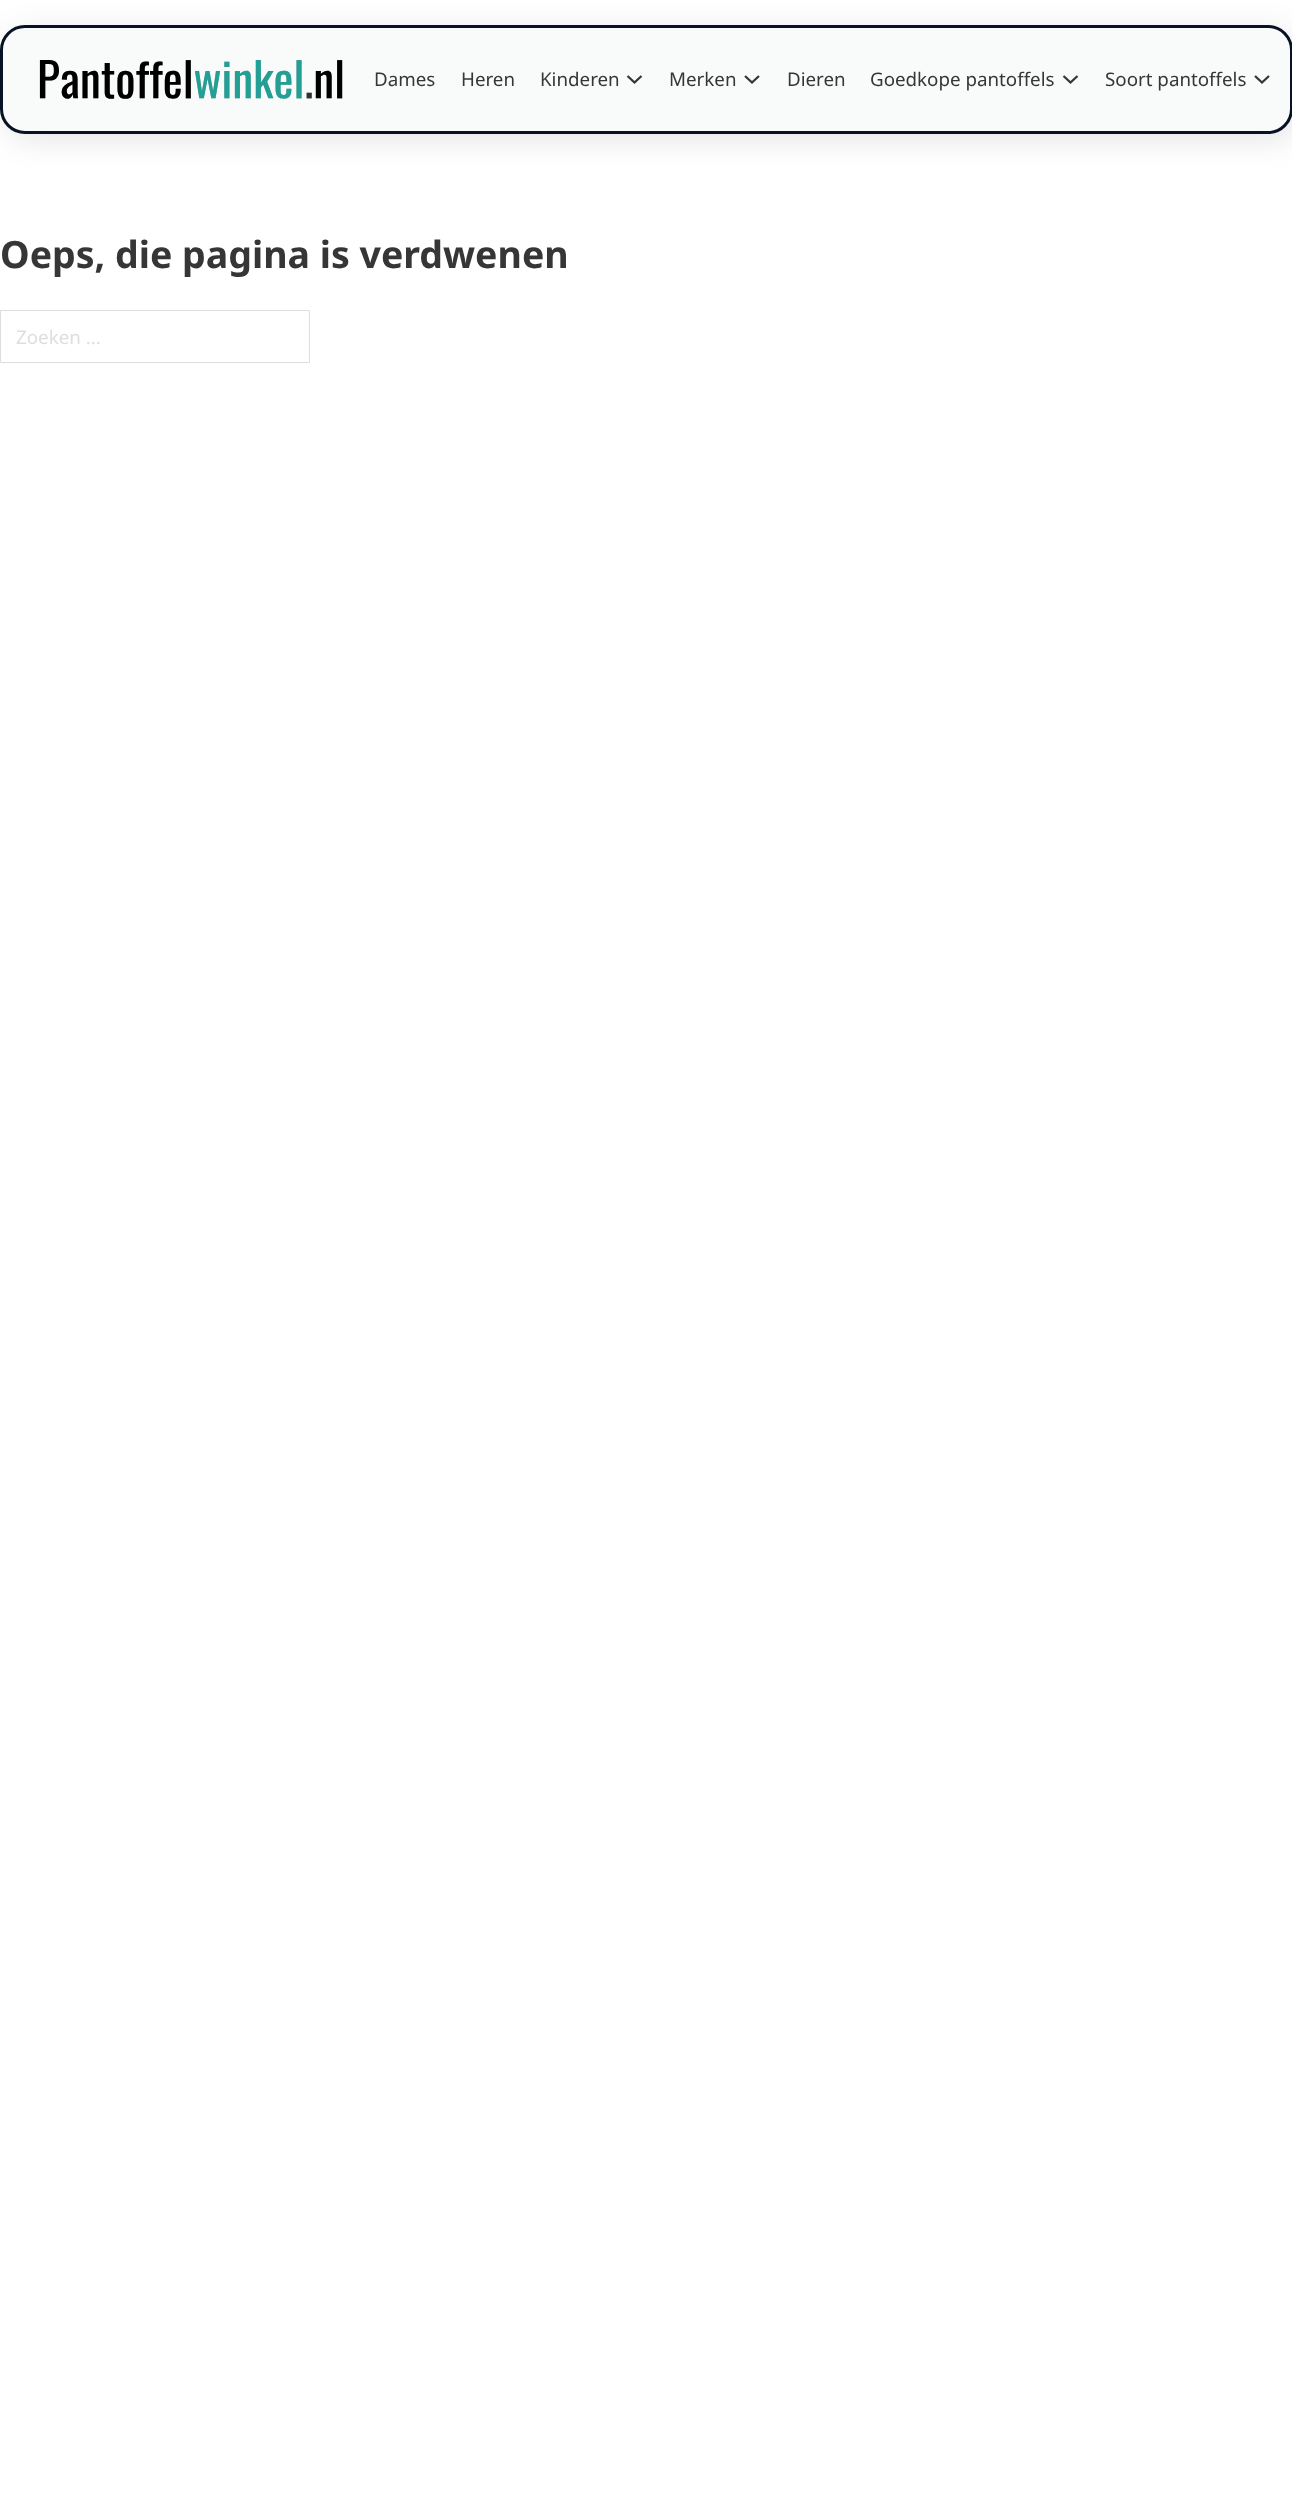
<svg xmlns="http://www.w3.org/2000/svg" width="1292" height="2514" viewBox="0 0 1292 2514">
  <rect width="100%" height="100%" fill="#fff"/>
  <rect x="6" y="31" width="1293" height="109" rx="25" fill="#0000001a" filter="blur(15.5px)"/>
  <rect x="1.5" y="26.5" width="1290" height="106" rx="23.5" fill="#f9fbfb" stroke="#071225" stroke-width="3"/>
  <image x="39" y="60" width="304" height="39" href="img/1.png"/>
  <path d="M627.5 76L634.5 82.5L641.5 76" fill="none" stroke="#363636" stroke-width="2.3"/>
  <path d="M745 76L752 82.5L759 76" fill="none" stroke="#363636" stroke-width="2.3"/>
  <path d="M1063.5 76L1070.5 82.5L1077.5 76" fill="none" stroke="#363636" stroke-width="2.3"/>
  <path d="M1255 76L1262 82.5L1269 76" fill="none" stroke="#363636" stroke-width="2.3"/>
  <path d="M0.5 310.5h309v52H0.5z" fill="none" stroke="#dddedf"/>
  <g font-family="Noto Sans" font-size="18.75" fill="#363636">
    <text x="374" y="86">Dames</text>
    <text x="461" y="86">Heren</text>
    <text x="540" y="86">Kinderen</text>
    <text x="669" y="86">Merken</text>
    <text x="787" y="86">Dieren</text>
    <text x="870" y="86">Goedkope pantoffels</text>
    <text x="1105" y="86">Soort pantoffels</text>
  </g>
  <text x="0" y="268" font-family="Noto Sans" font-size="37.5" font-weight="bold" fill="#363636">Oeps, die pagina is verdwenen</text>
  <text x="16" y="344" font-family="Noto Sans" font-size="18.75" fill="#dddedf">Zoeken ...</text>
</svg>
